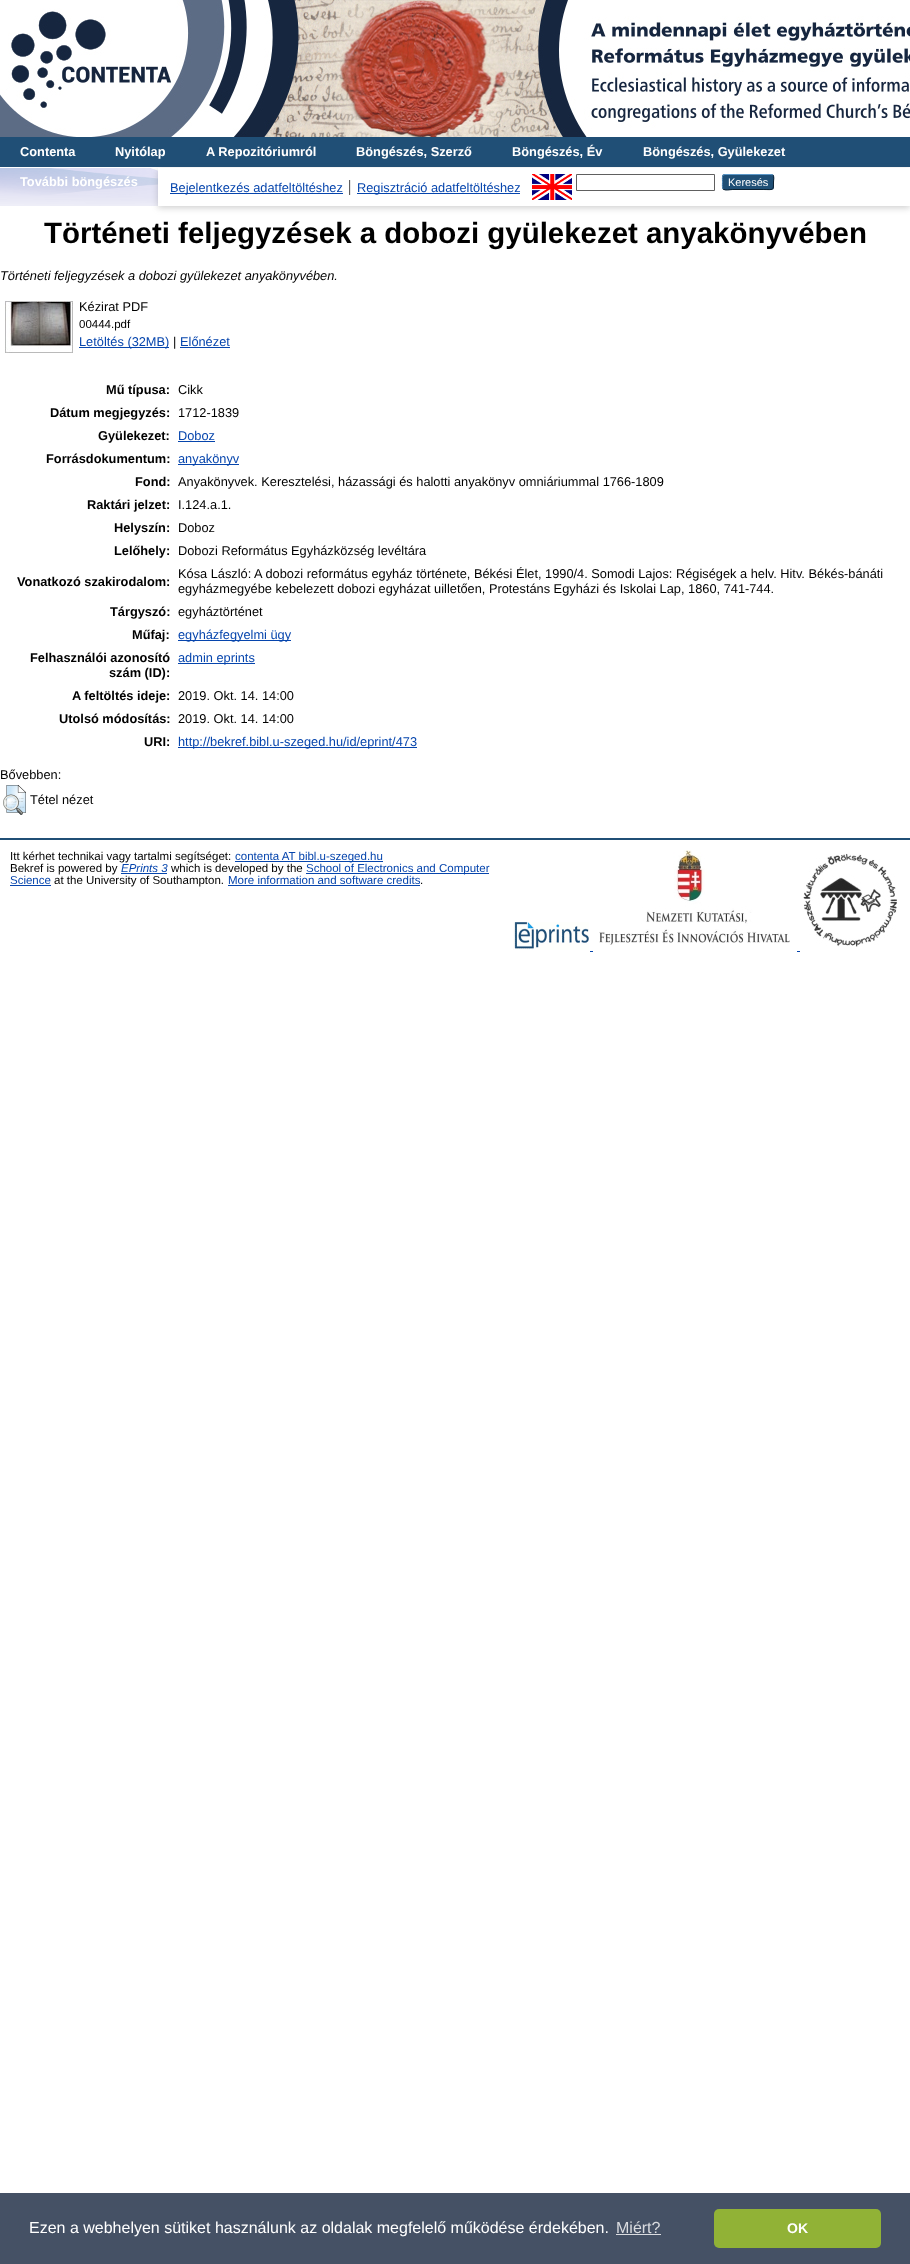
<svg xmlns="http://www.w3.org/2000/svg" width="910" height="2264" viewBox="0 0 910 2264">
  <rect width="100%" height="100%" fill="#fff"/>
  <image x="0" y="168" width="158" height="38" href="img/1.png"/>
  <image x="0" y="0" width="910" height="137" href="img/2.png"/>
  <path d="M0 137h910v30H0z" fill="#204f76"/>
  <path d="M158 170h752v38H158z" fill="#6464644d" filter="blur(3px)"/>
  <path d="M158 168h752v38H158z" fill="#fff"/>
  <path d="M349 180h1v15H349z" fill="#606060"/>
  <path d="M170 193h173v1H170z" fill="#0645ad"/>
  <path d="M350 180h1v15H350z" fill="#e8e8e8"/>
  <path d="M357 193h163v1H357z" fill="#0645ad"/>
  <image x="532" y="174" width="40" height="26" href="img/3.png"/>
  <path d="M576.5 174.5h138v16H576.5z" fill="none" stroke="#606060"/>
  <rect x="722" y="174" width="52" height="16" rx="3" fill="#1f4f76"/>
  <path d="M723 175L725 174.5H771L773 175" fill="none" stroke="#5b97c7"/>
  <path d="M773 175C774.5 177 773.5 180 773.5 182C773.5 191 773.5 189.5 763.5 189.5H732.5C729.5 189.5 725.5 191 723 189" fill="none" stroke="#0d2131"/>
  <path d="M723 189C722 187.5 722.5 183.5 722.5 182C722.5 180.5 722 176.5 723 175" fill="none" stroke="#5287b3"/>
  <image x="5" y="301" width="68" height="52" href="img/4.png"/>
  <path d="M79 347h90v1H79z" fill="#0645ad"/>
  <path d="M180 347h50v1H180z" fill="#0645ad"/>
  <path d="M178 441h37v1H178z" fill="#0645ad"/>
  <path d="M178 464h61v1H178z" fill="#0645ad"/>
  <path d="M178 640h113v1H178z" fill="#0645ad"/>
  <path d="M178 663h77v1H178z" fill="#0645ad"/>
  <path d="M178 747h239v1H178z" fill="#0645ad"/>
  <image x="3" y="785" width="23" height="30" href="img/5.png"/>
  <path d="M0 838h910v2H0z" fill="#204f76"/>
  <path d="M235 861h148v1H235z" fill="#0645ad"/>
  <path d="M121 873h46v1H121z" fill="#0645ad"/>
  <path d="M306 873h183v1H306z" fill="#0645ad"/>
  <path d="M10 885h41v1H10z" fill="#0645ad"/>
  <path d="M228 885h192v1H228z" fill="#0645ad"/>
  <image x="513" y="922" width="76" height="28" href="img/6.png"/>
  <image x="599" y="850" width="191" height="95" href="img/7.png"/>
  <image x="803" y="853" width="94" height="94" href="img/8.png"/>
  <path d="M590 951h3v1H590z" fill="#0645ad"/>
  <path d="M797 951h3v1H797z" fill="#0645ad"/>
  <path d="M0 2193h910v71H0z" fill="#455165"/>
  <path d="M616 2234h45v1H616z" fill="#dadce0"/>
  <rect x="714" y="2209" width="167" height="39" rx="5" fill="#91b236"/>
  <g font-family="Liberation Sans" font-size="12.8" font-weight="bold" fill="#fff">
    <text x="20" y="156">Contenta</text>
    <text x="115" y="156">Nyitólap</text>
    <text x="206" y="156">A Repozitóriumról</text>
    <text x="356" y="156">Böngészés, Szerző</text>
    <text x="512" y="156">Böngészés, Év</text>
    <text x="643" y="156">Böngészés, Gyülekezet</text>
    <text x="20" y="186">További böngészés</text>
  </g>
  <g font-family="Liberation Sans" font-size="12.8" fill="#0645ad">
    <text x="170" y="192">Bejelentkezés adatfeltöltéshez</text>
    <text x="357" y="192">Regisztráció adatfeltöltéshez</text>
  </g>
  <text x="728" y="186" font-family="Liberation Sans" font-size="11" fill="#fff">Keresés</text>
  <text x="44" y="243" font-family="Liberation Sans" font-size="29.45" font-weight="bold" fill="#000">Történeti feljegyzések a dobozi gyülekezet anyakönyvében</text>
  <text x="0" y="280" font-family="Liberation Sans" font-size="12.8" font-style="italic" fill="#000">Történeti feljegyzések a dobozi gyülekezet anyakönyvében.</text>
  <text x="79" y="311" font-family="Liberation Sans" font-size="12.8" fill="#000">Kézirat PDF</text>
  <text x="79" y="328" font-family="Liberation Sans" font-size="11.5" fill="#000">00444.pdf</text>
  <text x="79" y="346" font-family="Liberation Sans" font-size="12.8" fill="#0645ad">Letöltés (32MB)</text>
  <text x="173" y="346" font-family="Liberation Sans" font-size="12.8" fill="#000">|</text>
  <text x="180" y="346" font-family="Liberation Sans" font-size="12.8" fill="#0645ad">Előnézet</text>
  <text x="106" y="394" font-family="Liberation Sans" font-size="12.8" font-weight="bold" fill="#000">Mű típusa:</text>
  <text x="178" y="394" font-family="Liberation Sans" font-size="12.8" fill="#000">Cikk</text>
  <text x="50" y="417" font-family="Liberation Sans" font-size="12.8" font-weight="bold" fill="#000">Dátum megjegyzés:</text>
  <text x="178" y="417" font-family="Liberation Sans" font-size="12.8" fill="#000">1712-1839</text>
  <text x="98" y="440" font-family="Liberation Sans" font-size="12.8" font-weight="bold" fill="#000">Gyülekezet:</text>
  <text x="178" y="440" font-family="Liberation Sans" font-size="12.8" fill="#0645ad">Doboz</text>
  <text x="46" y="463" font-family="Liberation Sans" font-size="12.8" font-weight="bold" fill="#000">Forrásdokumentum:</text>
  <text x="178" y="463" font-family="Liberation Sans" font-size="12.8" fill="#0645ad">anyakönyv</text>
  <text x="135" y="486" font-family="Liberation Sans" font-size="12.8" font-weight="bold" fill="#000">Fond:</text>
  <text x="178" y="486" font-family="Liberation Sans" font-size="12.8" fill="#000">Anyakönyvek. Keresztelési, házassági és halotti anyakönyv omniáriummal 1766-1809</text>
  <text x="87" y="509" font-family="Liberation Sans" font-size="12.8" font-weight="bold" fill="#000">Raktári jelzet:</text>
  <text x="178" y="509" font-family="Liberation Sans" font-size="12.8" fill="#000">I.124.a.1.</text>
  <text x="114" y="532" font-family="Liberation Sans" font-size="12.8" font-weight="bold" fill="#000">Helyszín:</text>
  <text x="178" y="532" font-family="Liberation Sans" font-size="12.8" fill="#000">Doboz</text>
  <text x="114" y="555" font-family="Liberation Sans" font-size="12.8" font-weight="bold" fill="#000">Lelőhely:</text>
  <text x="178" y="555" font-family="Liberation Sans" font-size="12.8" fill="#000">Dobozi Református Egyházközség levéltára</text>
  <text x="17" y="586" font-family="Liberation Sans" font-size="12.8" font-weight="bold" fill="#000">Vonatkozó szakirodalom:</text>
  <g font-family="Liberation Sans" font-size="12.8" fill="#000">
    <text x="178" y="578">Kósa László: A dobozi református egyház története, Békési Élet, 1990/4. Somodi Lajos: Régiségek a helv. Hitv. Békés-bánáti</text>
    <text x="178" y="593">egyházmegyébe kebelezett dobozi egyházat uilletően, Protestáns Egyházi és Iskolai Lap, 1860, 741-744.</text>
  </g>
  <text x="110" y="616" font-family="Liberation Sans" font-size="12.8" font-weight="bold" fill="#000">Tárgyszó:</text>
  <text x="178" y="616" font-family="Liberation Sans" font-size="12.8" fill="#000">egyháztörténet</text>
  <text x="132" y="639" font-family="Liberation Sans" font-size="12.8" font-weight="bold" fill="#000">Műfaj:</text>
  <text x="178" y="639" font-family="Liberation Sans" font-size="12.8" fill="#0645ad">egyházfegyelmi ügy</text>
  <g font-family="Liberation Sans" font-size="12.8" font-weight="bold" fill="#000">
    <text x="30" y="662">Felhasználói azonosító</text>
    <text x="109" y="677">szám (ID):</text>
  </g>
  <text x="178" y="662" font-family="Liberation Sans" font-size="12.8" fill="#0645ad">admin eprints</text>
  <text x="72" y="700" font-family="Liberation Sans" font-size="12.8" font-weight="bold" fill="#000">A feltöltés ideje:</text>
  <text x="178" y="700" font-family="Liberation Sans" font-size="12.8" fill="#000">2019. Okt. 14. 14:00</text>
  <text x="59" y="723" font-family="Liberation Sans" font-size="12.8" font-weight="bold" fill="#000">Utolsó módosítás:</text>
  <text x="178" y="723" font-family="Liberation Sans" font-size="12.8" fill="#000">2019. Okt. 14. 14:00</text>
  <text x="144" y="746" font-family="Liberation Sans" font-size="12.8" font-weight="bold" fill="#000">URI:</text>
  <text x="178" y="746" font-family="Liberation Sans" font-size="12.8" fill="#0645ad">http://bekref.bibl.u-szeged.hu/id/eprint/473</text>
  <g font-family="Liberation Sans" font-size="12.8" fill="#000">
    <text x="0" y="779">Bővebben:</text>
    <text x="30" y="804">Tétel nézet</text>
  </g>
  <text x="10" y="860" font-family="Liberation Sans" font-size="11.5" fill="#000">Itt kérhet technikai vagy tartalmi segítséget:</text>
  <text x="235" y="860" font-family="Liberation Sans" font-size="11.5" fill="#0645ad">contenta AT bibl.u-szeged.hu</text>
  <text x="10" y="872" font-family="Liberation Sans" font-size="11.5" fill="#000">Bekref is powered by</text>
  <text x="121" y="872" font-family="Liberation Sans" font-size="11.5" font-style="italic" fill="#0645ad">EPrints 3</text>
  <text x="171" y="872" font-family="Liberation Sans" font-size="11.5" fill="#000">which is developed by the</text>
  <g font-family="Liberation Sans" font-size="11.5" fill="#0645ad">
    <text x="306" y="872">School of Electronics and Computer</text>
    <text x="10" y="884">Science</text>
  </g>
  <text x="54" y="884" font-family="Liberation Sans" font-size="11.5" fill="#000">at the University of Southampton.</text>
  <text x="228" y="884" font-family="Liberation Sans" font-size="11.5" fill="#0645ad">More information and software credits</text>
  <text x="420" y="884" font-family="Liberation Sans" font-size="11.5" fill="#000">.</text>
  <text x="29" y="2233" font-family="Liberation Sans" font-size="16" fill="#fff">Ezen a webhelyen sütiket használunk az oldalak megfelelő működése érdekében.</text>
  <text x="616" y="2233" font-family="Liberation Sans" font-size="16" fill="#dadce0">Miért?</text>
  <text x="787" y="2233" font-family="Liberation Sans" font-size="14" font-weight="bold" fill="#fff">OK</text>
</svg>
